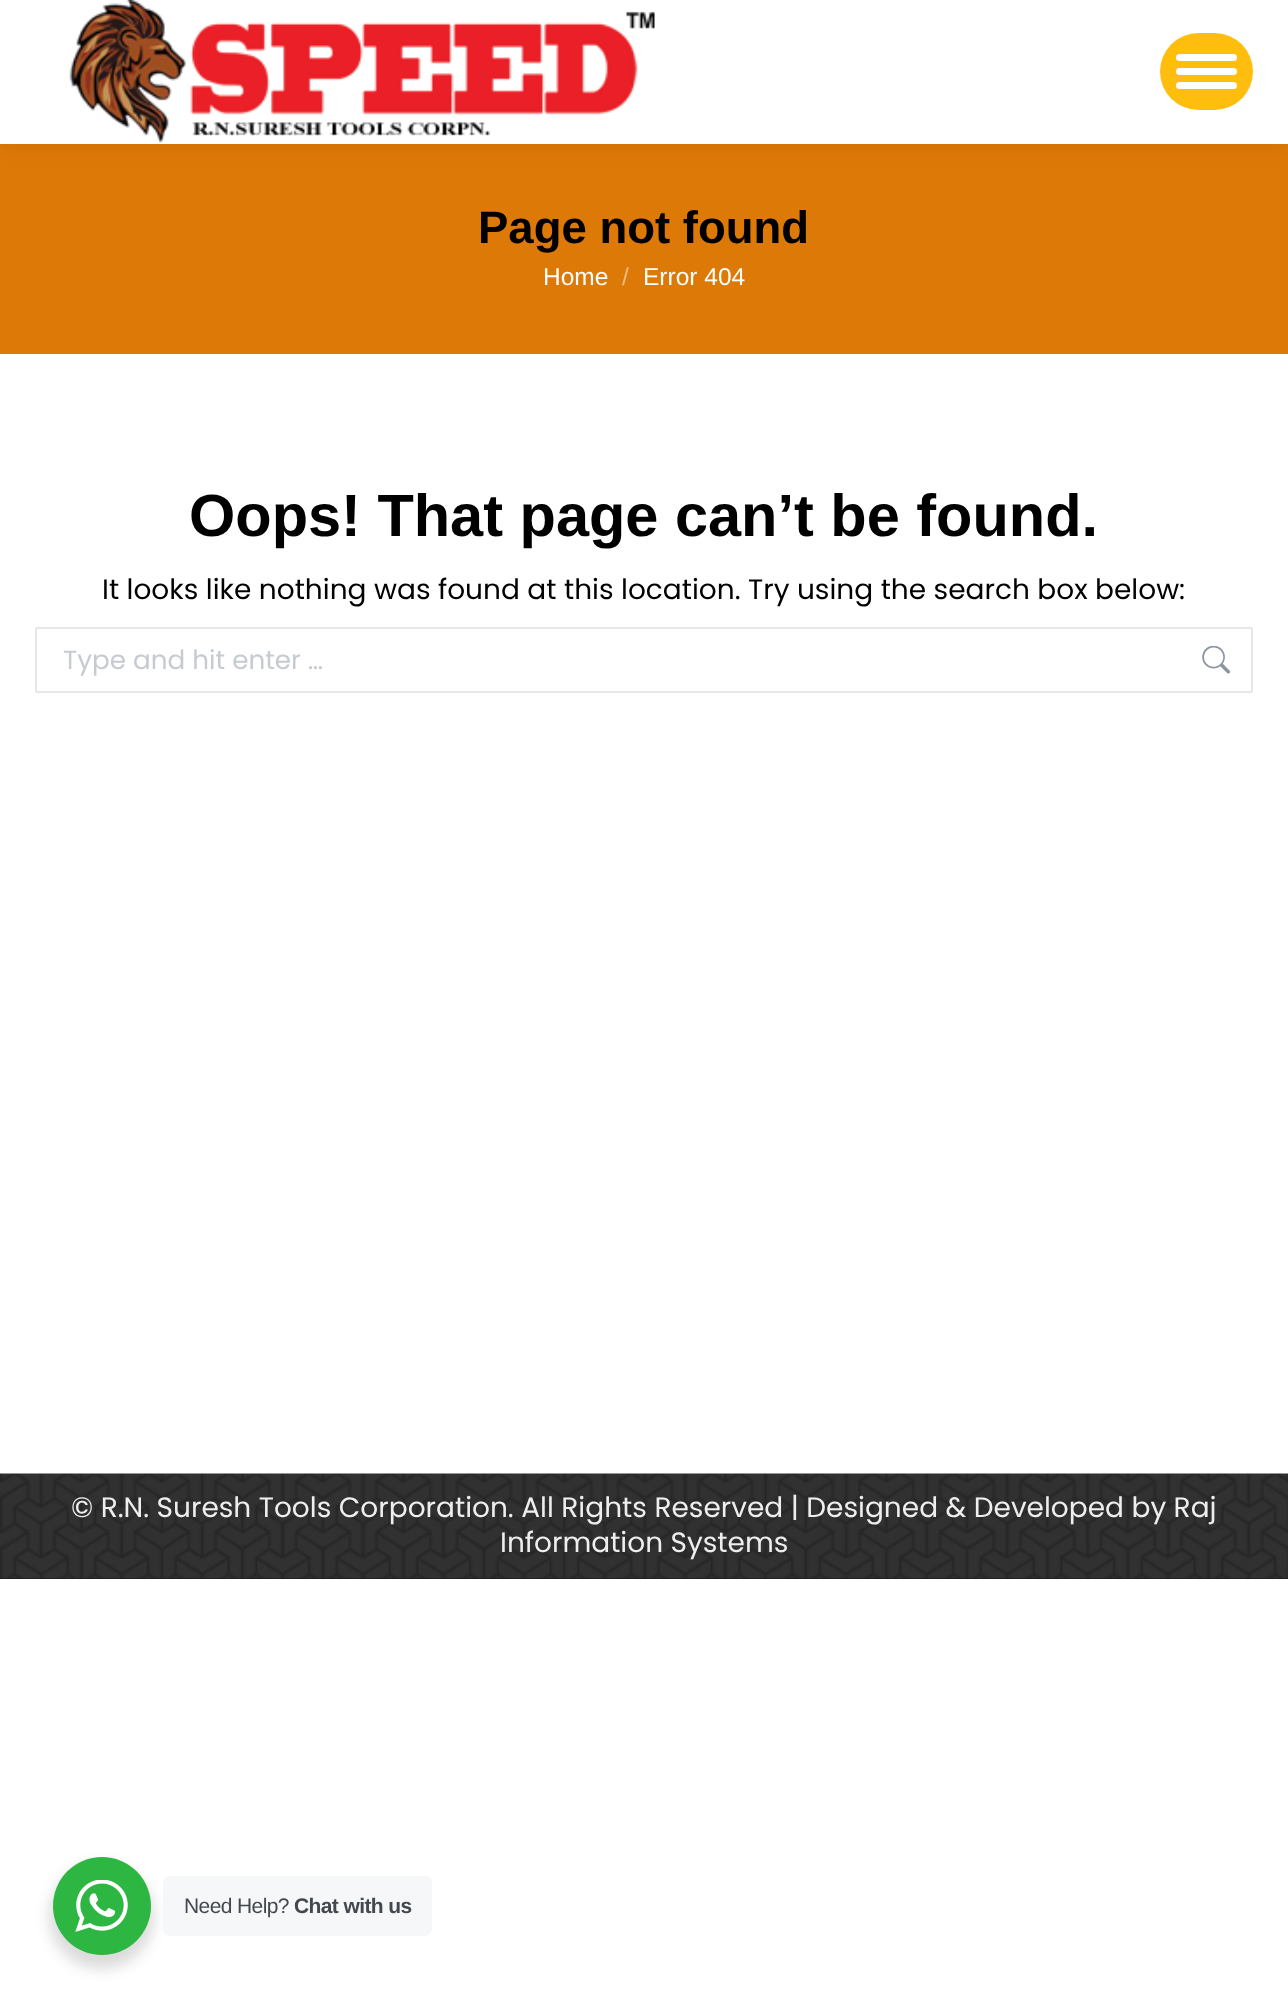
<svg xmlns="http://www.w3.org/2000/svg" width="1288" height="2007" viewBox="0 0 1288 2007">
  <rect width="100%" height="100%" fill="#fff"/>
  <path d="M0 144h1288v210H0z" fill="#dd7907"/>
  <path d="M-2 -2h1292v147H-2z" fill="#00000012" filter="blur(13px)"/>
  <path d="M0 0h1288v144H0z" fill="#fff"/>
  <image x="69" y="0" width="586" height="143" href="img/1.png"/>
  <rect x="1160" y="33" width="93" height="77" rx="38.5" fill="#ffbe0e"/>
  <rect x="1176" y="54" width="61" height="7" rx="3.5" fill="#fff"/>
  <rect x="1176" y="68" width="61" height="7" rx="3.5" fill="#fff"/>
  <rect x="1176" y="82" width="61" height="7" rx="3.5" fill="#fff"/>
  <rect x="36" y="628" width="1216" height="64" rx="1" fill="none" stroke="#e7e7e7" stroke-width="2"/>
  <image x="1202" y="646" width="28" height="28" href="img/2.png"/>
  <path d="M0 1578h1288v1H0z" fill="#1a1c20"/>
  <image x="0" y="1473" width="1288" height="106" href="img/3.png"/>
  <rect x="49" y="1864" width="105" height="105" rx="52.5" fill="#00000024" filter="blur(7px)"/>
  <circle cx="102" cy="1906" r="49" fill="#2db742"/>
  <image x="75" y="1880" width="53" height="52" href="img/4.png"/>
  <rect x="163" y="1876" width="269" height="60" rx="7" fill="#f5f7f9"/>
  <text x="478" y="243" font-family="Liberation Sans" font-size="45.5" font-weight="bold" fill="#000">Page not found</text>
  <text x="543" y="285" font-family="Liberation Sans" font-size="24.5" fill="#fff">Home</text>
  <text x="622" y="285" font-family="Liberation Sans" font-size="24.5" fill="#eebc83">/</text>
  <text x="643" y="285" font-family="Liberation Sans" font-size="24.5" fill="#fff">Error 404</text>
  <text x="189" y="536" font-family="Liberation Sans" font-size="59.5" font-weight="bold" fill="#000">Oops! That page can’t be found.</text>
  <text x="102" y="599" font-family="Poppins" font-size="28" fill="#000">It looks like nothing was found at this location. Try using the search box below:</text>
  <text x="63" y="669" font-family="Poppins" font-size="26.25" fill="#c6cad1">Type and hit enter …</text>
  <g font-family="Poppins" font-size="28" fill="#eee">
    <text x="71" y="1517">© R.N. Suresh Tools Corporation. All Rights Reserved | Designed &amp; Developed by Raj</text>
    <text x="500" y="1552">Information Systems</text>
  </g>
  <text x="184" y="1913" font-family="Liberation Sans" font-size="21" letter-spacing="-0.6" fill="#43474e">Need Help?</text>
  <text x="294" y="1913" font-family="Liberation Sans" font-size="21" font-weight="bold" letter-spacing="-0.6" fill="#43474e">Chat with us</text>
</svg>
